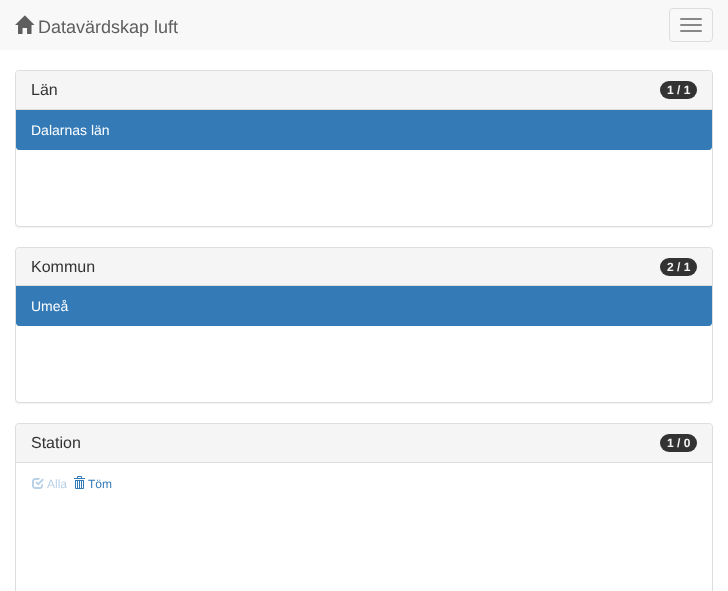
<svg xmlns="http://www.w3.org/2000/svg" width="728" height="591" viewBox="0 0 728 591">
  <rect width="100%" height="100%" fill="#fff"/>
  <path d="M0 0h728v50H0z" fill="#f8f8f8"/>
  <image x="15" y="15" width="20" height="19" href="img/1.png"/>
  <rect x="669.5" y="8.5" width="43" height="33" rx="3.5" fill="none" stroke="#ddd"/>
  <rect x="680" y="18" width="22" height="2" rx="1" fill="#888"/>
  <rect x="680" y="24" width="22" height="2" rx="1" fill="#888"/>
  <rect x="680" y="30" width="22" height="2" rx="1" fill="#888"/>
  <rect x="15" y="71" width="698" height="157" rx="4" fill="#0000000d" filter="blur(0.5px)"/>
  <rect x="15.5" y="70.5" width="697" height="156" rx="3.5" fill="#fff" stroke="#ddd"/>
  <path d="M19 71H709C710.5 71 712 72.5 712 74V110H16V74C16 72.5 17.5 71 19 71Z" fill="#f5f5f5"/>
  <path d="M16 109h696v1H16z" fill="#ddd"/>
  <rect x="660" y="81" width="37" height="18" rx="9" fill="#333"/>
  <path d="M16 110H712V147C712 148.5 710.5 150 709 150H19C17.5 150 16 148.5 16 147Z" fill="#337ab7"/>
  <rect x="15" y="248" width="698" height="156" rx="4" fill="#0000000d" filter="blur(0.5px)"/>
  <rect x="15.5" y="247.5" width="697" height="155" rx="3.5" fill="#fff" stroke="#ddd"/>
  <path d="M19 248H709C710.5 248 712 249.5 712 251V286H16V251C16 249.5 17.5 248 19 248Z" fill="#f5f5f5"/>
  <path d="M16 285h696v1H16z" fill="#ddd"/>
  <rect x="660" y="258" width="37" height="18" rx="9" fill="#333"/>
  <path d="M16 286H712V323C712 324.5 710.5 326 709 326H19C17.5 326 16 324.5 16 323Z" fill="#337ab7"/>
  <rect x="15.5" y="423.5" width="697" height="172" rx="3.5" fill="none" stroke="#ddd"/>
  <path d="M19 424H709C710.5 424 712 425.5 712 427V463H16V427C16 425.5 17.5 424 19 424Z" fill="#f5f5f5"/>
  <path d="M16 462h696v1H16z" fill="#ddd"/>
  <rect x="660" y="434" width="37" height="18" rx="9" fill="#333"/>
  <image x="32" y="478" width="12" height="11" href="img/2.png"/>
  <image x="74" y="476" width="11" height="13" href="img/3.png"/>
  <text x="38" y="33" font-family="Liberation Sans" font-size="18" fill="#5e5e5e">Datavärdskap luft</text>
  <text x="31" y="95" font-family="Liberation Sans" font-size="16" fill="#333">Län</text>
  <text x="667" y="94" font-family="Liberation Sans" font-size="12" font-weight="bold" fill="#f5f5f5">1 / 1</text>
  <text x="31" y="135" font-family="Liberation Sans" font-size="14" fill="#fff">Dalarnas län</text>
  <text x="31" y="272" font-family="Liberation Sans" font-size="16" fill="#333">Kommun</text>
  <text x="667" y="271" font-family="Liberation Sans" font-size="12" font-weight="bold" fill="#f5f5f5">2 / 1</text>
  <text x="31" y="311" font-family="Liberation Sans" font-size="14" fill="#fff">Umeå</text>
  <text x="31" y="448" font-family="Liberation Sans" font-size="16" fill="#333">Station</text>
  <text x="667" y="447" font-family="Liberation Sans" font-size="12" font-weight="bold" fill="#f5f5f5">1 / 0</text>
  <text x="47" y="488" font-family="Liberation Sans" font-size="12" fill="#b8d0e6">Alla</text>
  <text x="88" y="488" font-family="Liberation Sans" font-size="12" fill="#337ab7">Töm</text>
</svg>
